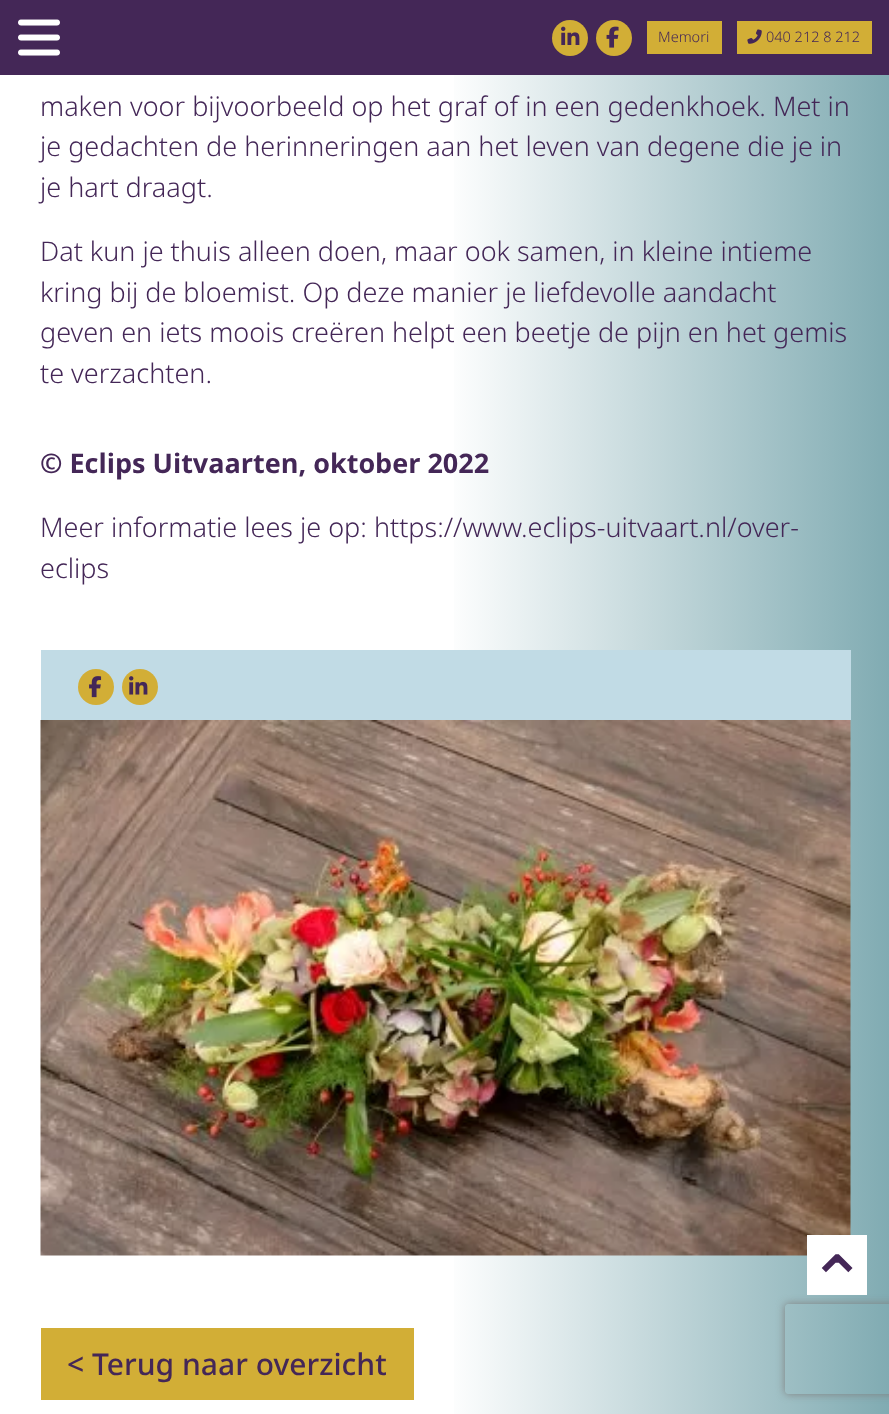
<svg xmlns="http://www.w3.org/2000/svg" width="889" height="1414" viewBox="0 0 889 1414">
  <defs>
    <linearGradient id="g1" gradientUnits="userSpaceOnUse" x1="0" y1="83" x2="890" y2="83"><stop offset="0.5" stop-color="#fff"/><stop offset="1" stop-color="#80abb2"/></linearGradient>
    <clipPath id="clip1"><path d="M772 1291H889V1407H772ZM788 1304H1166C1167.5 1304 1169 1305.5 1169 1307V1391C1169 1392.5 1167.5 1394 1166 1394H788C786.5 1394 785 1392.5 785 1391V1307C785 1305.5 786.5 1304 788 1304Z" clip-rule="evenodd"/></clipPath>
  </defs>
  <rect width="100%" height="100%" fill="#fff"/>
  <path d="M0 0h889v75H0z" fill="#442757"/>
  <image x="18" y="19" width="42" height="37" href="img/1.png"/>
  <circle cx="570" cy="38" r="18" fill="#d2ae36"/>
  <image x="561" y="26" width="19" height="19" href="img/2.png"/>
  <circle cx="614" cy="38" r="18" fill="#d2ae36"/>
  <image x="606" y="26" width="13" height="22" href="img/3.png"/>
  <path d="M647 21h75v33H647z" fill="#d2ae36"/>
  <path d="M737 21h135v33H737z" fill="#d2ae36"/>
  <image x="747" y="29" width="15" height="15" href="img/4.png"/>
  <path d="M454 75h435v1339H454z" fill="url(#g1)"/>
  <path d="M41 650h810v70H41z" fill="#c1dbe5"/>
  <circle cx="96" cy="687" r="18" fill="#d2ae36"/>
  <image x="89" y="676" width="13" height="22" href="img/5.png"/>
  <circle cx="140" cy="687" r="18" fill="#d2ae36"/>
  <image x="129" y="676" width="19" height="19" href="img/6.png"/>
  <image x="40" y="720" width="811" height="536" href="img/7.png"/>
  <path d="M41 1328h373v72H41z" fill="#d2ae36"/>
  <path d="M807 1235h60v60H807z" fill="#fff"/>
  <g clip-path="url(#clip1)">
    <rect x="785" y="1304" width="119" height="90" rx="3" fill="#808080" filter="blur(4px)"/>
  </g>
  <g font-family="Noto Sans" font-size="14.5" font-weight="300" fill="#442757">
    <text x="658" y="42">Memori</text>
    <text x="766" y="42">040 212 8 212</text>
  </g>
  <g font-family="Noto Sans" font-size="27" font-weight="300" fill="#442757">
    <text x="40" y="116">maken voor bijvoorbeeld op het graf of in een gedenkhoek. Met in</text>
    <text x="40" y="156">je gedachten de herinneringen aan het leven van degene die je in</text>
    <text x="40" y="197">je hart draagt.</text>
    <text x="40" y="261">Dat kun je thuis alleen doen, maar ook samen, in kleine intieme</text>
    <text x="40" y="302">kring bij de bloemist. Op deze manier je liefdevolle aandacht</text>
    <text x="40" y="342">geven en iets moois creëren helpt een beetje de pijn en het gemis</text>
    <text x="40" y="383">te verzachten.</text>
  </g>
  <text x="40" y="473" font-family="Noto Sans" font-size="27" font-weight="bold" fill="#442757">© Eclips Uitvaarten, oktober 2022</text>
  <g font-family="Noto Sans" font-size="27" font-weight="300" fill="#442757">
    <text x="40" y="537">Meer informatie lees je op: https://www.eclips-uitvaart.nl/over-</text>
    <text x="40" y="578">eclips</text>
  </g>
  <text x="67" y="1375" font-family="Noto Sans" font-size="30" font-weight="500" fill="#442757">&lt; Terug naar overzicht</text>
  <text x="807" y="1307" font-family="DejaVu Sans" font-size="72" fill="#442757">⌃</text>
</svg>
